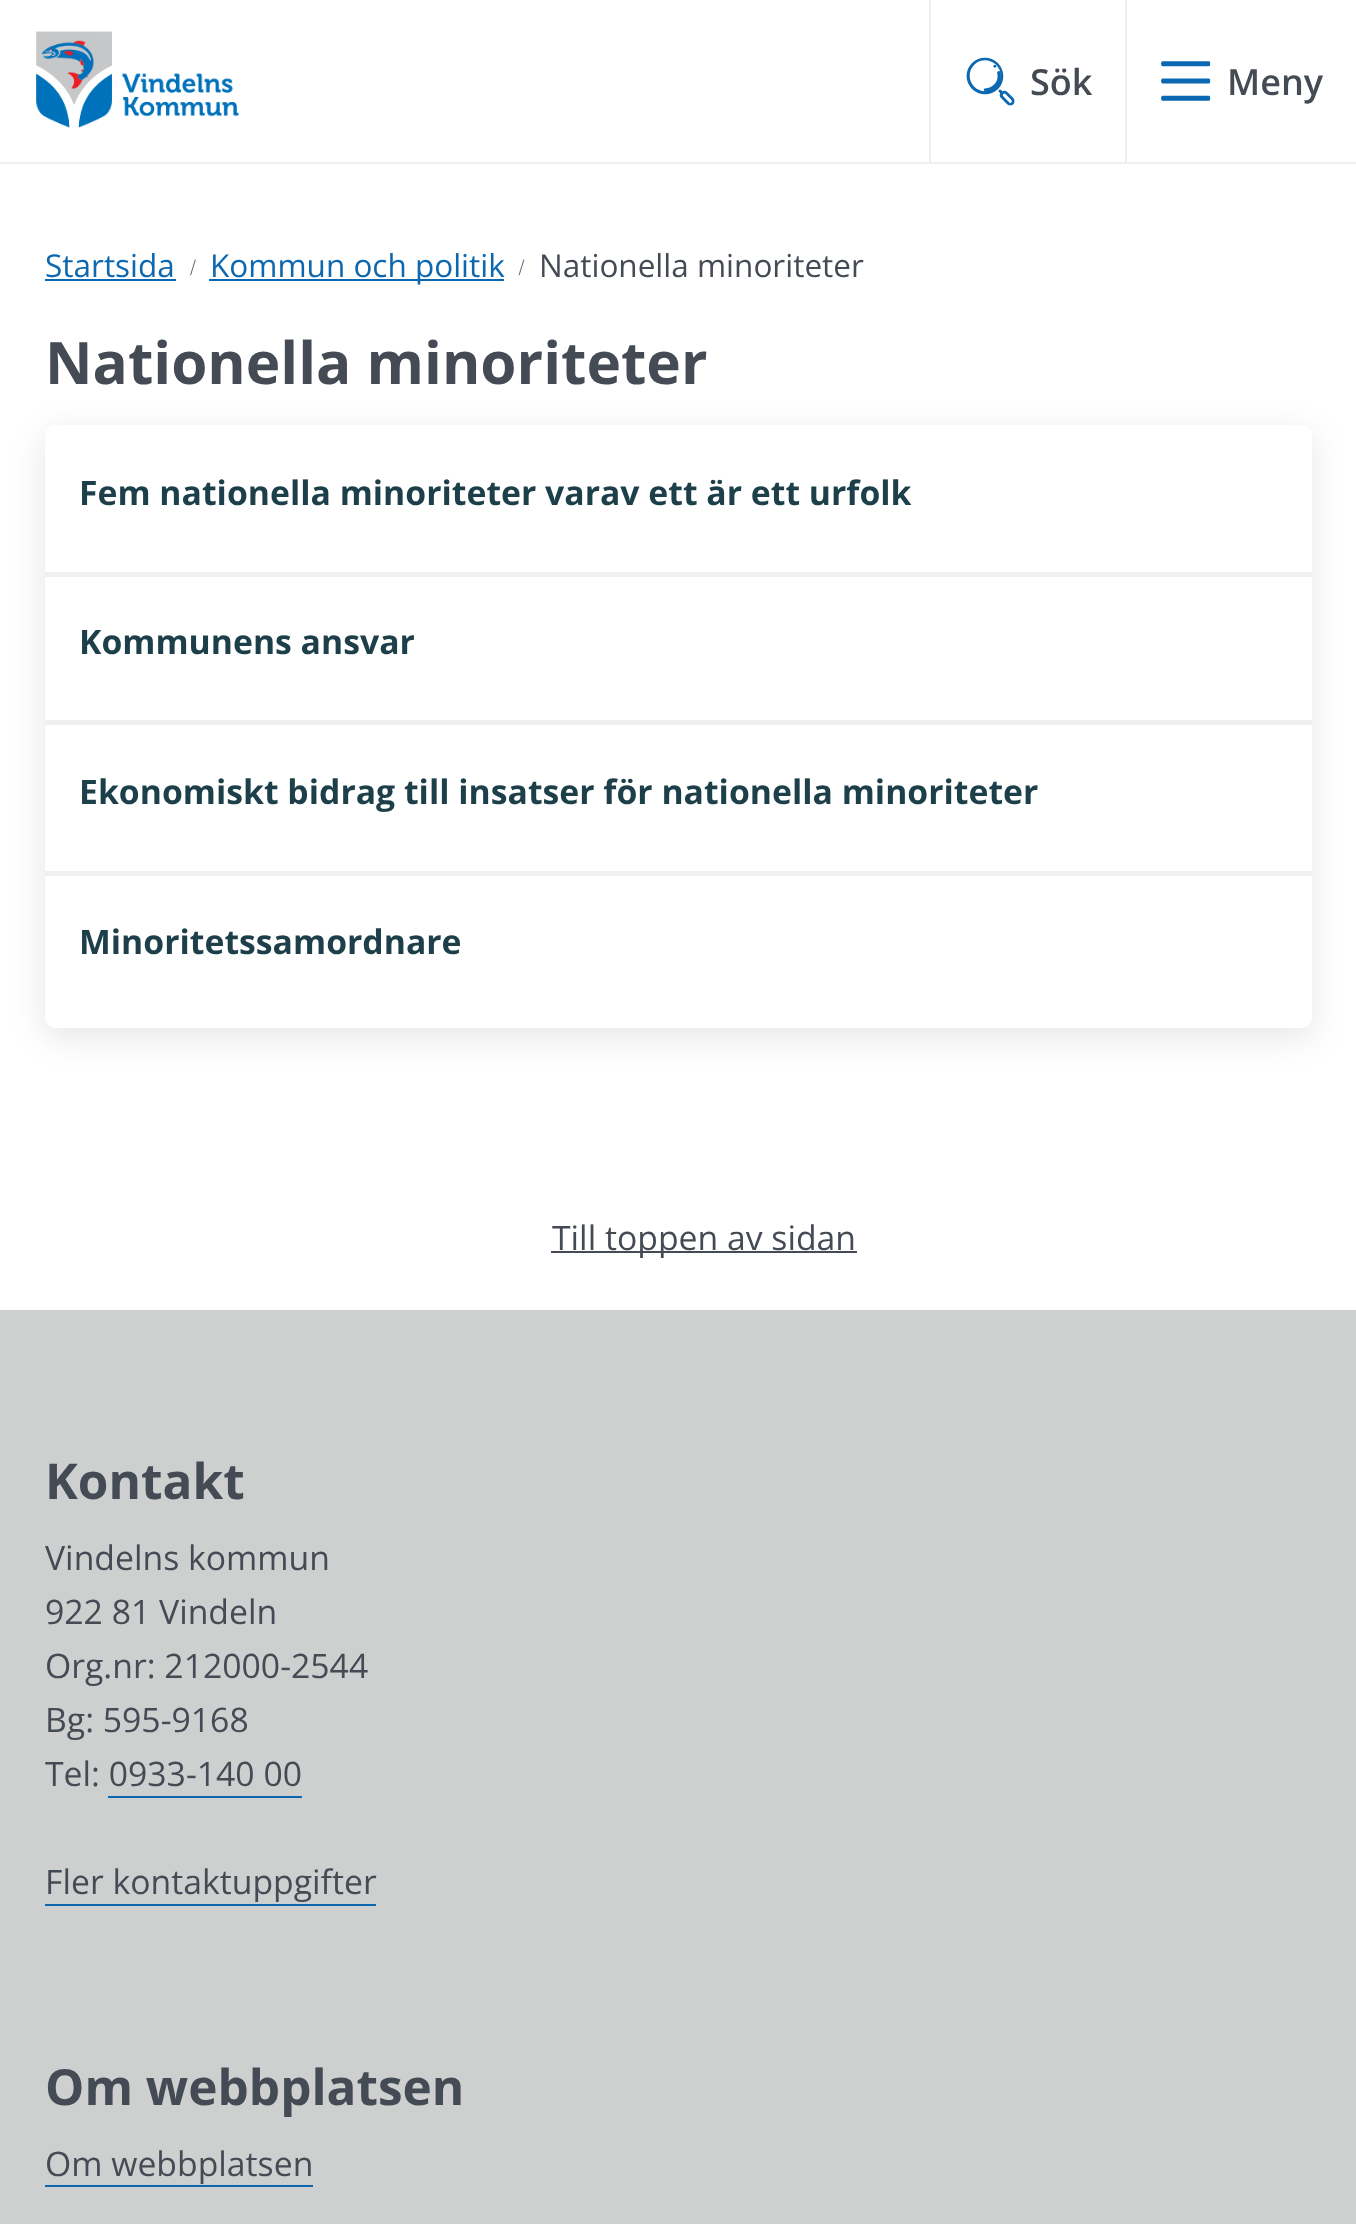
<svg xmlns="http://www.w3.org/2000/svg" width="1356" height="2224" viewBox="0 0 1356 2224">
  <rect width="100%" height="100%" fill="#fff"/>
  <path d="M0 162h1356v2H0z" fill="#f0f0f0"/>
  <image x="36" y="31" width="203" height="97" href="img/1.png"/>
  <path d="M929 0h2v162H929z" fill="#f0f0f0"/>
  <image x="966" y="57" width="49" height="49" href="img/2.png"/>
  <path d="M1125 0h2v162H1125z" fill="#f0f0f0"/>
  <image x="1161" y="61" width="50" height="40" href="img/3.png"/>
  <path d="M45 279h131v2H45z" fill="#0c68b0"/>
  <image x="190" y="259" width="6" height="17" href="img/4.png"/>
  <path d="M209 279h295v2H209z" fill="#0c68b0"/>
  <image x="518" y="259" width="7" height="17" href="img/5.png"/>
  <rect x="45" y="434" width="1267" height="603" rx="11" fill="#0000001a" filter="blur(17px)"/>
  <rect x="45" y="425" width="1267" height="603" rx="11" fill="#fff"/>
  <path d="M45 572h1267v5H45z" fill="#f0f0f0"/>
  <path d="M45 720h1267v5H45z" fill="#f0f0f0"/>
  <path d="M45 871h1267v5H45z" fill="#f0f0f0"/>
  <path d="M551 1251h306v2H551z" fill="#454b54"/>
  <path d="M0 1310h1356v914H0z" fill="#cecfcf"/>
  <path d="M108 1796h194v2H108z" fill="#0c68b0"/>
  <path d="M45 1904h331v2H45z" fill="#0c68b0"/>
  <path d="M45 2185h268v2H45z" fill="#0c68b0"/>
  <g font-family="Open Sans" font-size="36" font-weight="600" fill="#454b54">
    <text x="1030" y="95">Sök</text>
    <text x="1227" y="95">Meny</text>
  </g>
  <g font-family="Open Sans" font-size="31.5" fill="#0c68b0">
    <text x="45" y="277">Startsida</text>
    <text x="210" y="277">Kommun och politik</text>
  </g>
  <text x="539" y="277" font-family="Open Sans" font-size="31.5" fill="#454b54">Nationella minoriteter</text>
  <text x="45" y="384" font-family="Open Sans" font-size="58.5" font-weight="bold" fill="#454b54">Nationella minoriteter</text>
  <g font-family="Open Sans" font-size="33.75" font-weight="bold" fill="#1c3f49">
    <text x="79" y="505">Fem nationella minoriteter varav ett är ett urfolk</text>
    <text x="79" y="654">Kommunens ansvar</text>
    <text x="79" y="804">Ekonomiskt bidrag till insatser för nationella minoriteter</text>
    <text x="79" y="954">Minoritetssamordnare</text>
  </g>
  <text x="552" y="1250" font-family="Open Sans" font-size="33.75" fill="#454b54">Till toppen av sidan</text>
  <text x="45" y="1499" font-family="Open Sans" font-size="49.5" font-weight="bold" fill="#454b54">Kontakt</text>
  <g font-family="Open Sans" font-size="33.75" fill="#454b54">
    <text x="45" y="1570">Vindelns kommun</text>
    <text x="45" y="1624">922 81 Vindeln</text>
    <text x="45" y="1678">Org.nr: 212000-2544</text>
    <text x="45" y="1732">Bg: 595-9168</text>
    <text x="45" y="1786">Tel: 0933-140 00</text>
    <text x="45" y="1894">Fler kontaktuppgifter</text>
  </g>
  <text x="45" y="2105" font-family="Open Sans" font-size="49.5" font-weight="bold" fill="#454b54">Om webbplatsen</text>
  <text x="45" y="2176" font-family="Open Sans" font-size="33.75" fill="#454b54">Om webbplatsen</text>
</svg>
